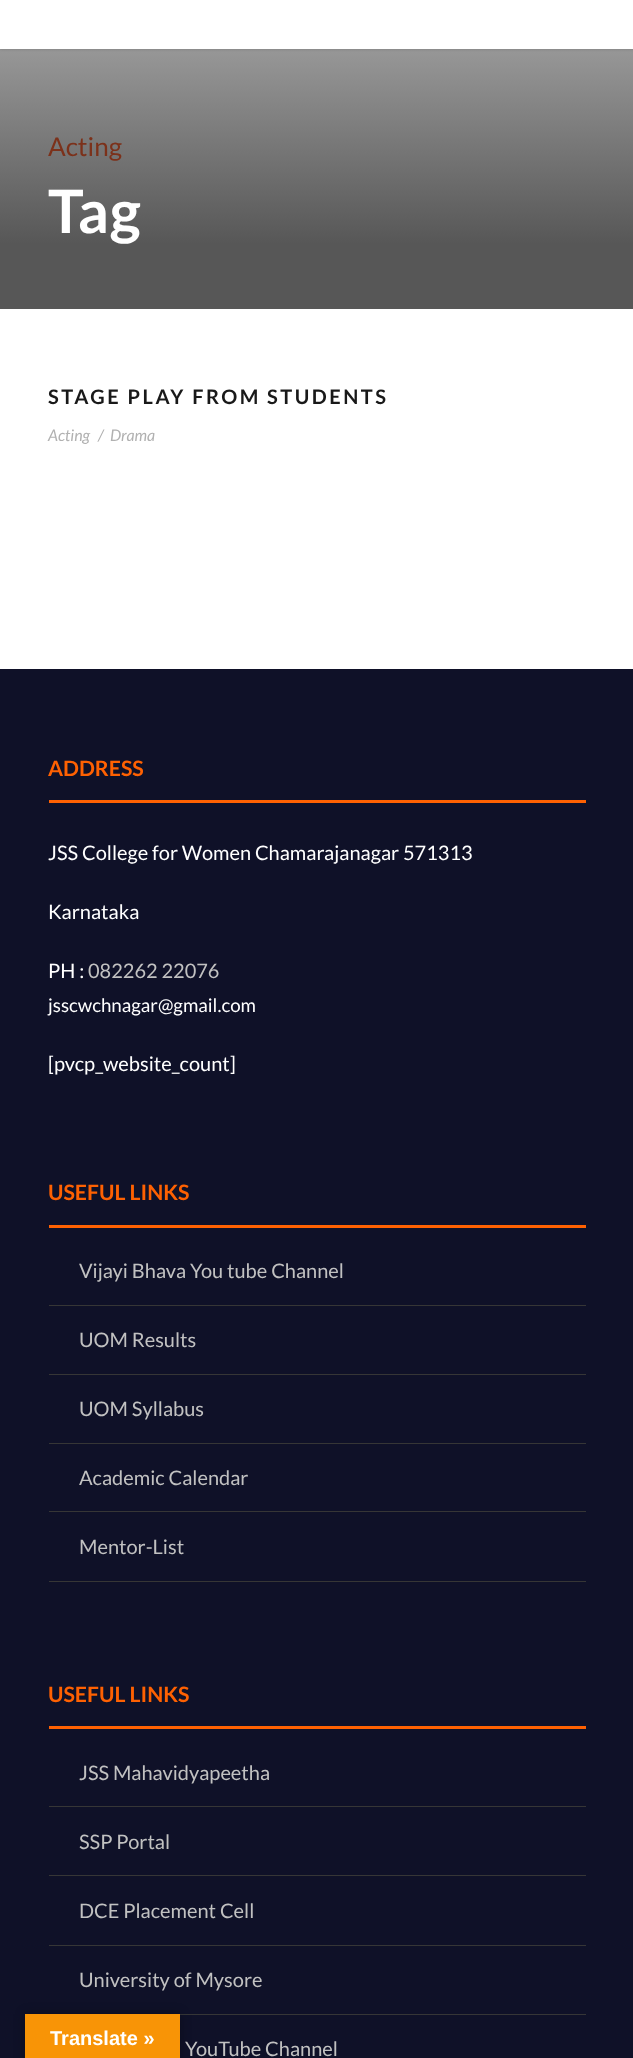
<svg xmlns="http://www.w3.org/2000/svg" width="633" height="2058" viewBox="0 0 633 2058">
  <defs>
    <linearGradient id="g1" gradientUnits="userSpaceOnUse" x1="317" y1="49" x2="317" y2="309"><stop offset="0" stop-color="#979797"/><stop offset="0.75" stop-color="#575757"/></linearGradient>
  </defs>
  <rect width="100%" height="100%" fill="#fff"/>
  <path d="M0 49h633v260H0z" fill="url(#g1)"/>
  <path d="M0 -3h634v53H0z" fill="#0000001a" filter="blur(1px)"/>
  <path d="M0 0h633v49H0z" fill="#fff"/>
  <path d="M0 669h633v1389H0z" fill="#0f1128"/>
  <path d="M49 800h537v3H49z" fill="#fe6102"/>
  <path d="M49 1225h537v3H49z" fill="#fe6102"/>
  <path d="M49 1305h537v1H49z" fill="#363636"/>
  <path d="M49 1374h537v1H49z" fill="#363636"/>
  <path d="M49 1443h537v1H49z" fill="#363636"/>
  <path d="M49 1511h537v1H49z" fill="#363636"/>
  <path d="M49 1581h537v1H49z" fill="#363636"/>
  <path d="M49 1726h537v3H49z" fill="#fe6102"/>
  <path d="M49 1806h537v1H49z" fill="#363636"/>
  <path d="M49 1875h537v1H49z" fill="#363636"/>
  <path d="M49 1945h537v1H49z" fill="#363636"/>
  <path d="M180 2014h406v1H180z" fill="#363636"/>
  <path d="M25 2014h155v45H25z" fill="#0000004d" filter="blur(5.5px)"/>
  <path d="M25 2014h155v44H25z" fill="#f89406"/>
  <text x="48" y="156" font-family="Lato" font-size="26" fill="#7c311a">Acting</text>
  <text x="48" y="233" font-family="Lato" font-size="60" font-weight="bold" letter-spacing="1" fill="#fff">Tag</text>
  <text x="48" y="404" font-family="Lato" font-size="20" font-weight="bold" letter-spacing="2.5" fill="#191919">STAGE PLAY FROM STUDENTS</text>
  <g font-family="Lato" font-size="16" font-style="italic" fill="#b1b1b1">
    <text x="48" y="441">Acting</text>
    <text x="98" y="441">/</text>
    <text x="110" y="441">Drama</text>
  </g>
  <text x="48" y="776" font-family="Lato" font-size="21.25" font-weight="bold" fill="#fe6102">ADDRESS</text>
  <g font-family="Lato" font-size="20" fill="#fff">
    <text x="48" y="860">JSS College for Women Chamarajanagar 571313</text>
    <text x="48" y="919">Karnataka</text>
    <text x="48" y="978">PH :</text>
  </g>
  <text x="88" y="978" font-family="Lato" font-size="20" fill="#c1c1c1">082262 22076</text>
  <text x="48" y="1012" font-family="Lato" font-size="18.75" fill="#fff">jsscwchnagar@gmail.com</text>
  <text x="48" y="1071" font-family="Lato" font-size="20" fill="#fff">[pvcp_website_count]</text>
  <text x="48" y="1200" font-family="Lato" font-size="21.25" font-weight="bold" fill="#fe6102">USEFUL LINKS</text>
  <g font-family="Lato" font-size="20" fill="#c1c1c1">
    <text x="79" y="1278">Vijayi Bhava You tube Channel</text>
    <text x="79" y="1347">UOM Results</text>
    <text x="79" y="1416">UOM Syllabus</text>
    <text x="79" y="1485">Academic Calendar</text>
    <text x="79" y="1554">Mentor-List</text>
  </g>
  <text x="48" y="1702" font-family="Lato" font-size="21.25" font-weight="bold" fill="#fe6102">USEFUL LINKS</text>
  <g font-family="Lato" font-size="20" fill="#c1c1c1">
    <text x="79" y="1780">JSS Mahavidyapeetha</text>
    <text x="79" y="1849">SSP Portal</text>
    <text x="79" y="1918">DCE Placement Cell</text>
    <text x="79" y="1987">University of Mysore</text>
    <text x="185" y="2056">YouTube Channel</text>
  </g>
  <text x="50" y="2045" font-family="Liberation Sans" font-size="20" font-weight="bold" fill="#fff">Translate »</text>
</svg>
